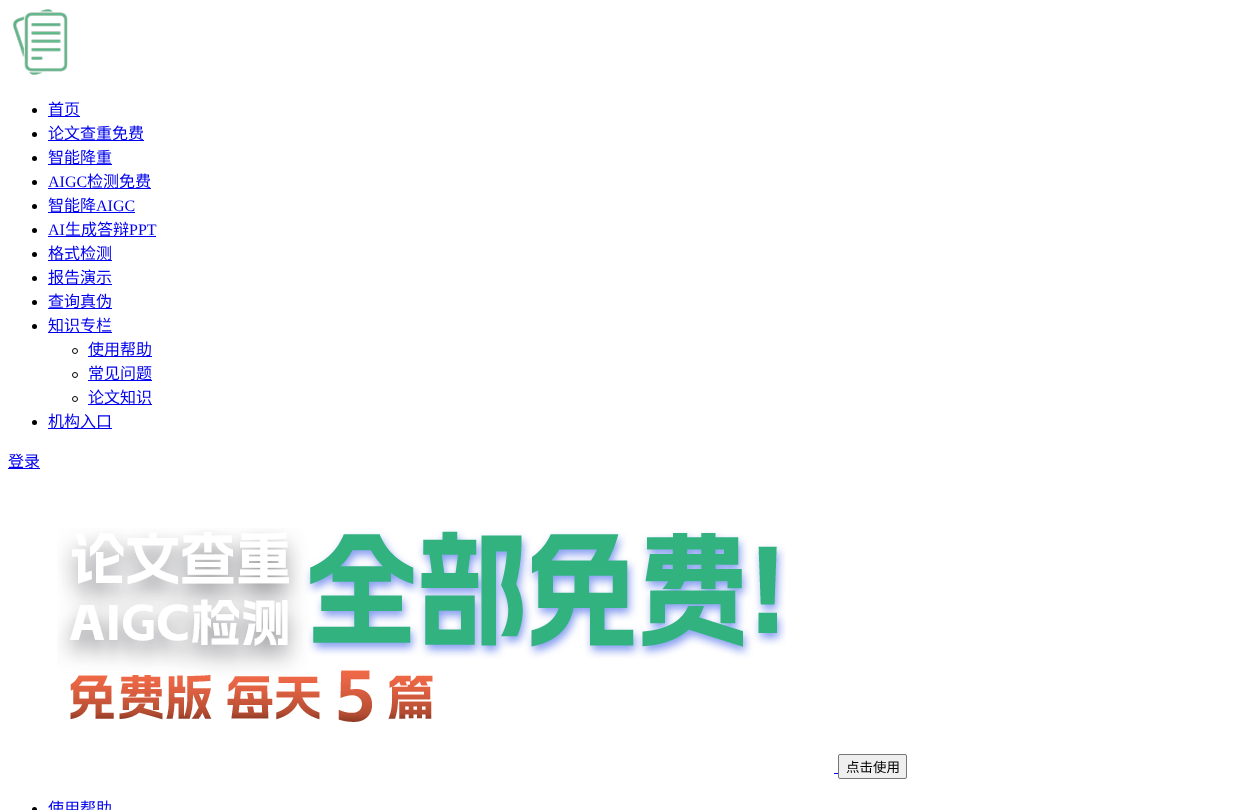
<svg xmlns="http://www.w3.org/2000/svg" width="1260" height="810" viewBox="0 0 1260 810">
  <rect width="100%" height="100%" fill="#fff"/>
  <image x="13" y="9" width="55" height="66" href="img/1.png"/>
  <circle cx="34.5" cy="110.5" r="2.5" fill="#000"/>
  <path d="M48 116h32v1H48z" fill="#00e"/>
  <circle cx="34.5" cy="134.5" r="2.5" fill="#000"/>
  <path d="M48 140h96v1H48z" fill="#00e"/>
  <circle cx="34.5" cy="158.5" r="2.5" fill="#000"/>
  <path d="M48 164h64v1H48z" fill="#00e"/>
  <circle cx="34.5" cy="182.5" r="2.5" fill="#000"/>
  <path d="M48 188h103v1H48z" fill="#00e"/>
  <circle cx="34.5" cy="206.5" r="2.5" fill="#000"/>
  <path d="M48 212h87v1H48z" fill="#00e"/>
  <circle cx="34.5" cy="230.5" r="2.5" fill="#000"/>
  <path d="M48 236h108v1H48z" fill="#00e"/>
  <circle cx="34.5" cy="254.5" r="2.5" fill="#000"/>
  <path d="M48 260h64v1H48z" fill="#00e"/>
  <circle cx="34.5" cy="278.5" r="2.5" fill="#000"/>
  <path d="M48 284h64v1H48z" fill="#00e"/>
  <circle cx="34.5" cy="302.5" r="2.5" fill="#000"/>
  <path d="M48 308h64v1H48z" fill="#00e"/>
  <circle cx="34.5" cy="326.5" r="2.5" fill="#000"/>
  <path d="M48 332h64v1H48z" fill="#00e"/>
  <circle cx="75" cy="351" r="2.5" fill="none" stroke="#000"/>
  <path d="M88 356h64v1H88z" fill="#00e"/>
  <circle cx="75" cy="375" r="2.5" fill="none" stroke="#000"/>
  <path d="M88 380h64v1H88z" fill="#00e"/>
  <circle cx="75" cy="399" r="2.5" fill="none" stroke="#000"/>
  <path d="M88 404h64v1H88z" fill="#00e"/>
  <circle cx="34.5" cy="422.5" r="2.5" fill="#000"/>
  <path d="M48 428h64v1H48z" fill="#00e"/>
  <path d="M8 468h32v1H8z" fill="#00e"/>
  <image x="57" y="528" width="729" height="194" href="img/2.png"/>
  <path d="M834 773h4v1H834z" fill="#00e"/>
  <rect x="838.5" y="754.5" width="68" height="24" rx="1.5" fill="#efefef" stroke="#767676"/>
  <circle cx="34.5" cy="809.5" r="2.5" fill="#000"/>
  <g font-family="Noto Sans CJK SC" font-size="16" fill="#00e">
    <text x="48" y="115">首页</text>
    <text x="48" y="139">论文查重免费</text>
    <text x="48" y="163">智能降重</text>
  </g>
  <text x="48" y="187" font-family="Liberation Serif" font-size="16" fill="#00e">AIGC</text>
  <g font-family="Noto Sans CJK SC" font-size="16" fill="#00e">
    <text x="87" y="187">检测免费</text>
    <text x="48" y="211">智能降</text>
  </g>
  <g font-family="Liberation Serif" font-size="16" fill="#00e">
    <text x="96" y="211">AIGC</text>
    <text x="48" y="235">AI</text>
  </g>
  <text x="65" y="235" font-family="Noto Sans CJK SC" font-size="16" fill="#00e">生成答辩</text>
  <text x="129" y="235" font-family="Liberation Serif" font-size="16" fill="#00e">PPT</text>
  <g font-family="Noto Sans CJK SC" font-size="16" fill="#00e">
    <text x="48" y="259">格式检测</text>
    <text x="48" y="283">报告演示</text>
    <text x="48" y="307">查询真伪</text>
    <text x="48" y="331">知识专栏</text>
    <text x="88" y="355">使用帮助</text>
    <text x="88" y="379">常见问题</text>
    <text x="88" y="403">论文知识</text>
    <text x="48" y="427">机构入口</text>
    <text x="8" y="467">登录</text>
  </g>
  <text x="846" y="772" font-family="Noto Sans CJK SC" font-size="13.5" fill="#000">点击使用</text>
  <text x="48" y="814" font-family="Noto Sans CJK SC" font-size="16" fill="#00e">使用帮助</text>
</svg>
